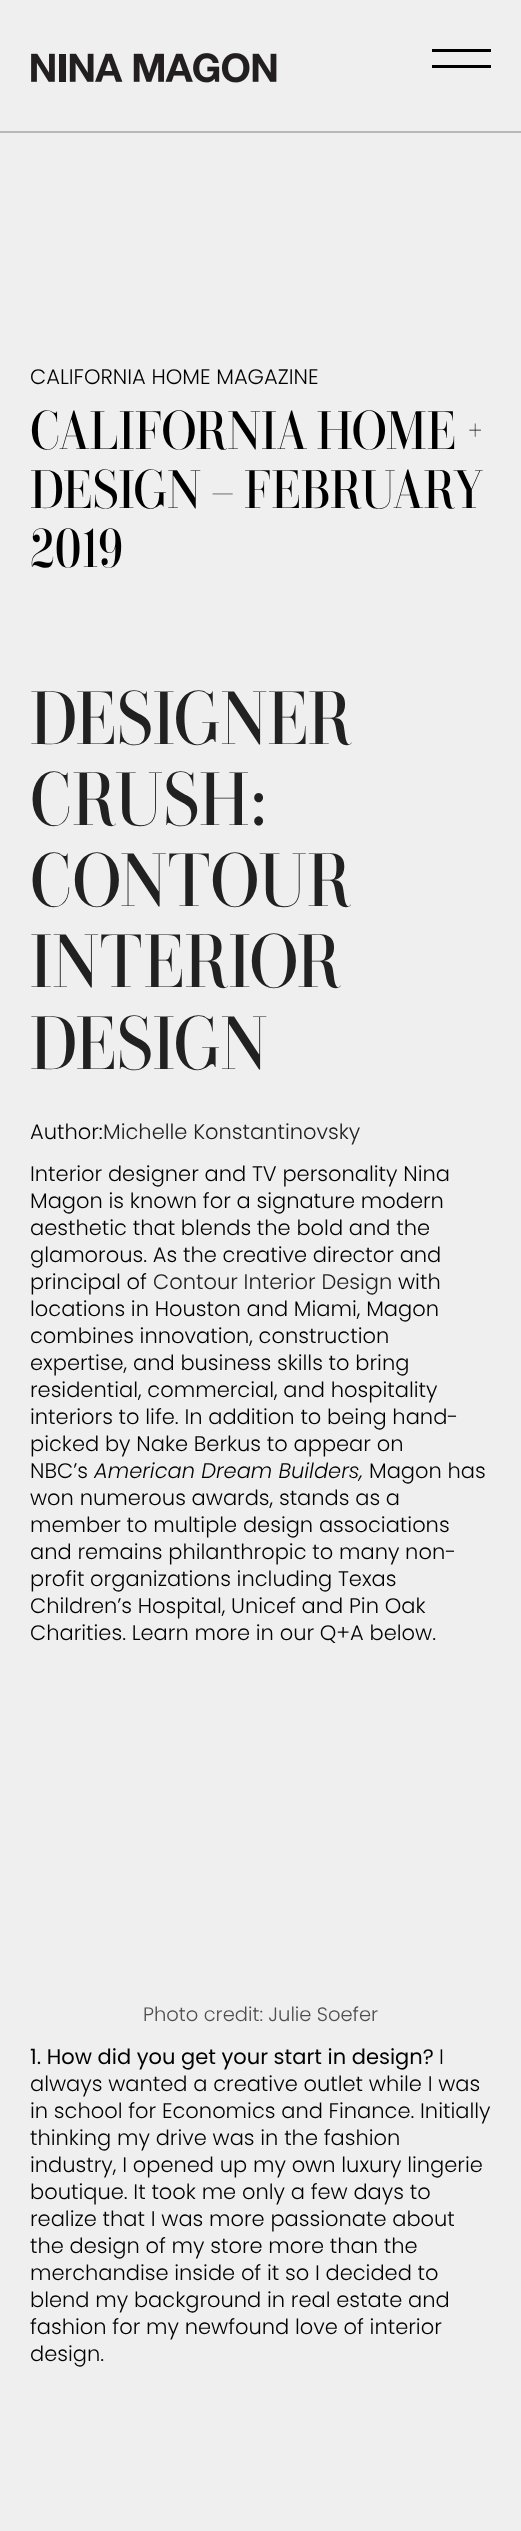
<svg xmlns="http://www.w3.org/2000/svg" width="521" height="2531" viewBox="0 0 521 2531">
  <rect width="100%" height="100%" fill="#efefef"/>
  <path d="M0 131h521v2H0z" fill="#b8b8b8"/>
  <image x="31" y="53" width="246" height="30" href="img/1.png"/>
  <path d="M432 49h59v3H432z" fill="#000"/>
  <path d="M432 65h59v3H432z" fill="#000"/>
  <text x="30" y="384" font-family="Poppins" font-size="21" font-weight="300" fill="#000">CALIFORNIA HOME MAGAZINE</text>
  <g font-family="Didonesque" font-size="54" font-weight="300" fill="#000">
    <text x="30" y="449">CALIFORNIA HOME +</text>
    <text x="30" y="508" word-spacing="-2">DESIGN – FEBRUARY</text>
    <text x="30" y="567">2019</text>
  </g>
  <g font-family="Didonesque" font-size="75" font-weight="300" fill="#212121">
    <text x="30" y="744">DESIGNER</text>
    <text x="30" y="825">CRUSH:</text>
    <text x="30" y="906">CONTOUR</text>
    <text x="30" y="987">INTERIOR</text>
    <text x="30" y="1069">DESIGN</text>
  </g>
  <text x="30" y="1139" font-family="Poppins" font-size="21" font-weight="300" fill="#000">Author:</text>
  <text x="103" y="1139" font-family="Poppins" font-size="21" font-weight="300" fill="#212121">Michelle Konstantinovsky</text>
  <g font-family="Poppins" font-size="21" font-weight="300" fill="#000">
    <text x="30" y="1181">Interior designer and TV personality Nina</text>
    <text x="30" y="1208">Magon is known for a signature modern</text>
    <text x="30" y="1235">aesthetic that blends the bold and the</text>
    <text x="30" y="1262">glamorous. As the creative director and</text>
    <text x="30" y="1289">principal of</text>
  </g>
  <text x="153" y="1289" font-family="Poppins" font-size="21" font-weight="300" fill="#212121">Contour Interior Design</text>
  <g font-family="Poppins" font-size="21" font-weight="300" fill="#000">
    <text x="398" y="1289">with</text>
    <text x="30" y="1316">locations in Houston and Miami, Magon</text>
    <text x="30" y="1343">combines innovation, construction</text>
    <text x="30" y="1370">expertise, and business skills to bring</text>
    <text x="30" y="1397">residential, commercial, and hospitality</text>
    <text x="30" y="1424">interiors to life. In addition to being hand-</text>
    <text x="30" y="1451">picked by Nake Berkus to appear on</text>
    <text x="30" y="1478">NBC’s</text>
  </g>
  <text x="94" y="1478" font-family="Poppins" font-size="21" font-weight="300" font-style="italic" fill="#000">American Dream Builders,</text>
  <g font-family="Poppins" font-size="21" font-weight="300" fill="#000">
    <text x="369" y="1478">Magon has</text>
    <text x="30" y="1505">won numerous awards, stands as a</text>
    <text x="30" y="1532">member to multiple design associations</text>
    <text x="30" y="1559">and remains philanthropic to many non-</text>
    <text x="30" y="1586">profit organizations including Texas</text>
    <text x="30" y="1613">Children’s Hospital, Unicef and Pin Oak</text>
    <text x="30" y="1640">Charities. Learn more in our Q+A below.</text>
  </g>
  <text x="143" y="2021" font-family="Poppins" font-size="19.5" font-weight="300" fill="#4e4e4e">Photo credit: Julie Soefer</text>
  <text x="30" y="2064" font-family="Poppins" font-size="21" fill="#000">1. How did you get your start in design?</text>
  <g font-family="Poppins" font-size="21" font-weight="300" fill="#000">
    <text x="439" y="2064">I</text>
    <text x="30" y="2091">always wanted a creative outlet while I was</text>
    <text x="30" y="2118">in school for Economics and Finance. Initially</text>
    <text x="30" y="2145">thinking my drive was in the fashion</text>
    <text x="30" y="2172">industry, I opened up my own luxury lingerie</text>
    <text x="30" y="2199">boutique. It took me only a few days to</text>
    <text x="30" y="2226">realize that I was more passionate about</text>
    <text x="30" y="2253">the design of my store more than the</text>
    <text x="30" y="2280">merchandise inside of it so I decided to</text>
    <text x="30" y="2307">blend my background in real estate and</text>
    <text x="30" y="2334">fashion for my newfound love of interior</text>
    <text x="30" y="2361">design.</text>
  </g>
</svg>
